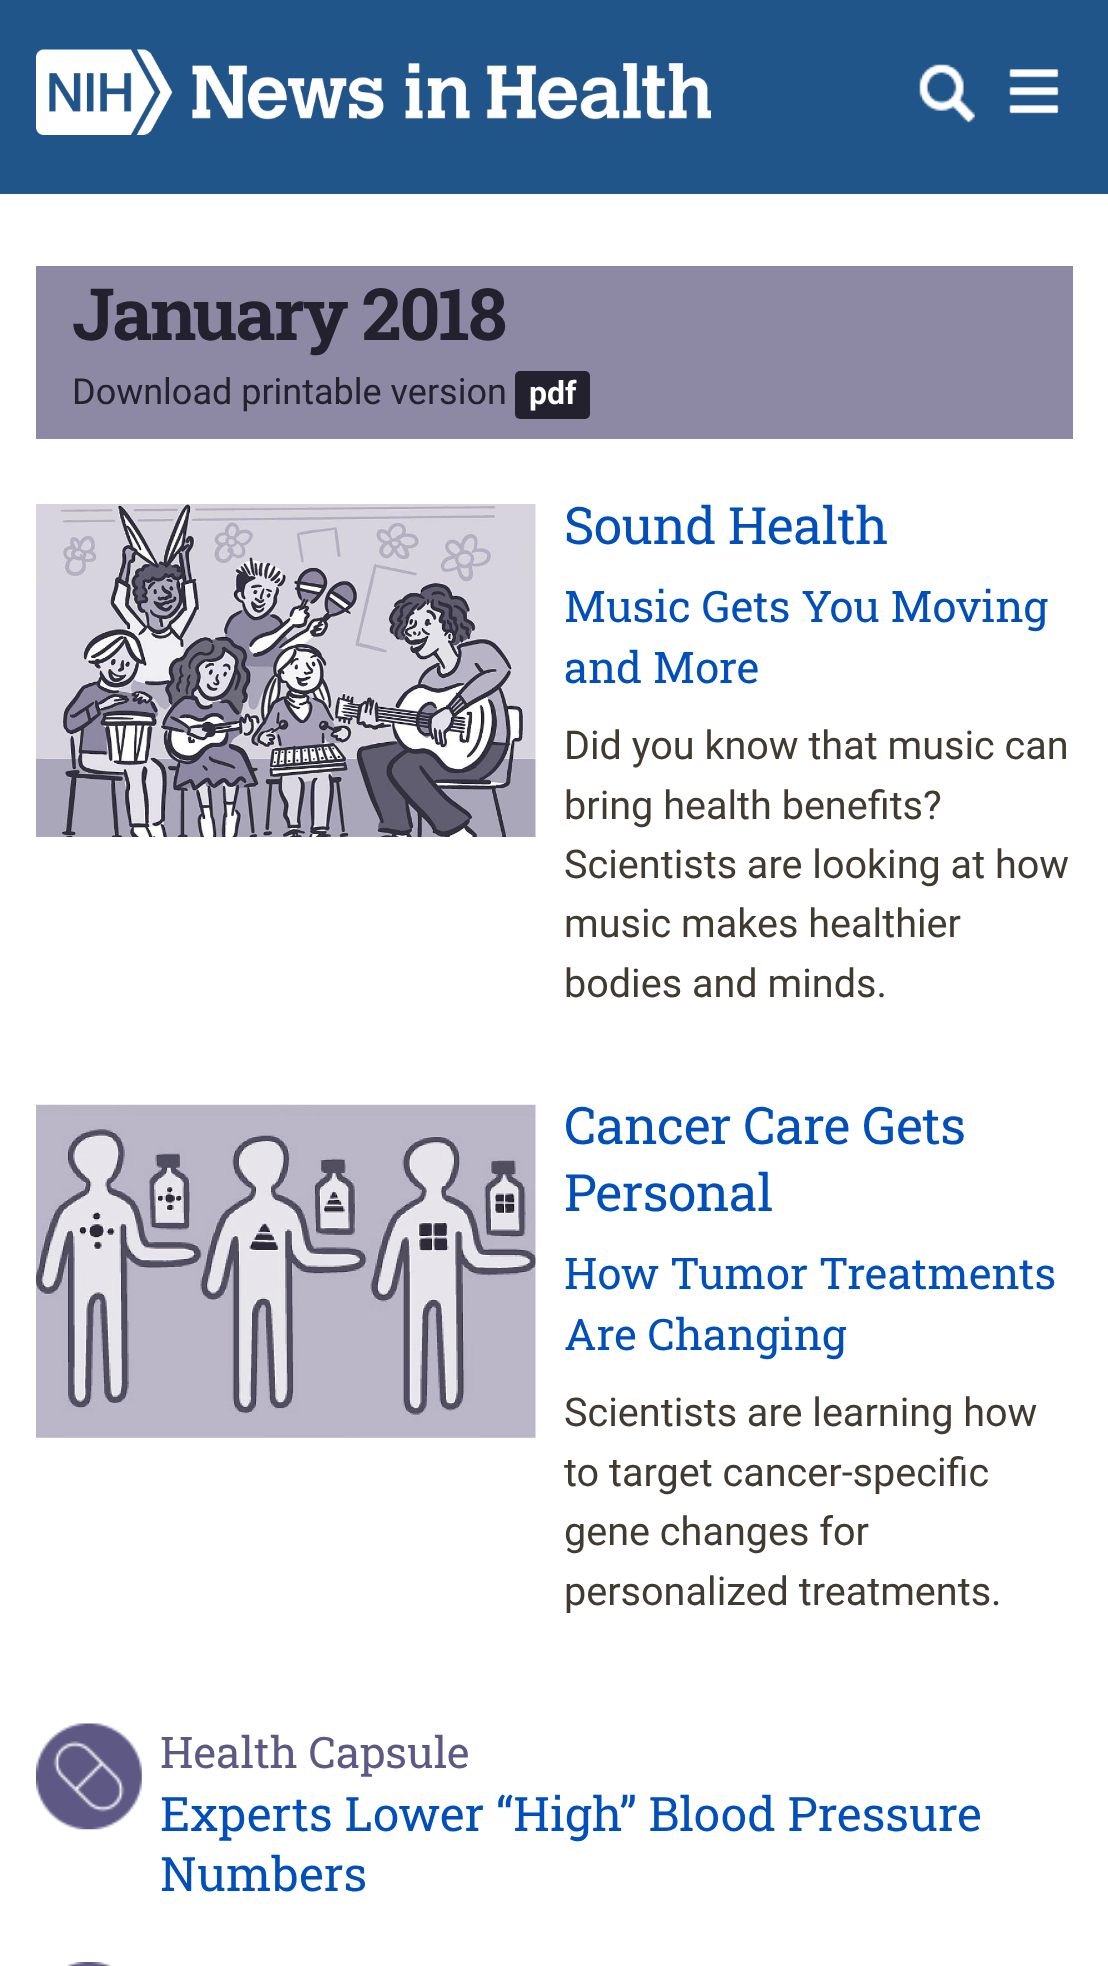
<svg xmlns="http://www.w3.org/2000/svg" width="1108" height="1966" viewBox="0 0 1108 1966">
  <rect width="100%" height="100%" fill="#fff"/>
  <path d="M0 0h1108v194H0z" fill="#20558a"/>
  <image x="36" y="49" width="675" height="86" href="img/1.png"/>
  <image x="919" y="64" width="56" height="59" href="img/2.png"/>
  <image x="919" y="64" width="56" height="59" href="img/3.png"/>
  <image x="1009" y="69" width="50" height="45" href="img/4.png"/>
  <image x="1009" y="69" width="50" height="45" href="img/5.png"/>
  <path d="M36 266h1037v173H36z" fill="#8d89a5"/>
  <rect x="515" y="371" width="75" height="48" rx="5" fill="#22212d"/>
  <image x="36" y="504" width="500" height="333" href="img/6.png"/>
  <image x="36" y="1104" width="500" height="334" href="img/7.png"/>
  <image x="36" y="1723" width="106" height="107" href="img/8.png"/>
  <image x="67" y="1962" width="44" height="4" href="img/9.png"/>
  <text x="72" y="340" font-family="Roboto Slab" font-size="72" font-weight="bold" letter-spacing="-2.2" fill="#22212d">January 2018</text>
  <text x="72" y="404" font-family="Roboto" font-size="36" fill="#22212d">Download printable version</text>
  <text x="529" y="404" font-family="Roboto" font-size="32" font-weight="bold" fill="#fff">pdf</text>
  <text x="564" y="544" font-family="Roboto Slab" font-size="51.5" letter-spacing="-0.5" fill="#004fba">Sound Health</text>
  <g font-family="Roboto Slab" font-size="43.5" fill="#004fba">
    <text x="564" y="622">Music Gets You Moving</text>
    <text x="564" y="683">and More</text>
  </g>
  <g font-family="Roboto" font-size="39.6" fill="#403a31">
    <text x="564" y="759">Did you know that music can</text>
    <text x="564" y="819">bring health benefits?</text>
    <text x="564" y="878">Scientists are looking at how</text>
    <text x="564" y="937">music makes healthier</text>
    <text x="564" y="997">bodies and minds.</text>
  </g>
  <g font-family="Roboto Slab" font-size="51.5" letter-spacing="-0.5" fill="#004fba">
    <text x="564" y="1144">Cancer Care Gets</text>
    <text x="564" y="1211">Personal</text>
  </g>
  <g font-family="Roboto Slab" font-size="43.5" fill="#004fba">
    <text x="564" y="1289">How Tumor Treatments</text>
    <text x="564" y="1350">Are Changing</text>
  </g>
  <g font-family="Roboto" font-size="39.6" fill="#403a31">
    <text x="564" y="1426">Scientists are learning how</text>
    <text x="564" y="1486">to target cancer-specific</text>
    <text x="564" y="1545">gene changes for</text>
    <text x="564" y="1605">personalized treatments.</text>
  </g>
  <text x="160" y="1768" font-family="Roboto Slab" font-size="43.5" fill="#5d5984">Health Capsule</text>
  <g font-family="Roboto Slab" font-size="47.5" fill="#004fba">
    <text x="160" y="1831">Experts Lower “High” Blood Pressure</text>
    <text x="160" y="1891">Numbers</text>
  </g>
</svg>
